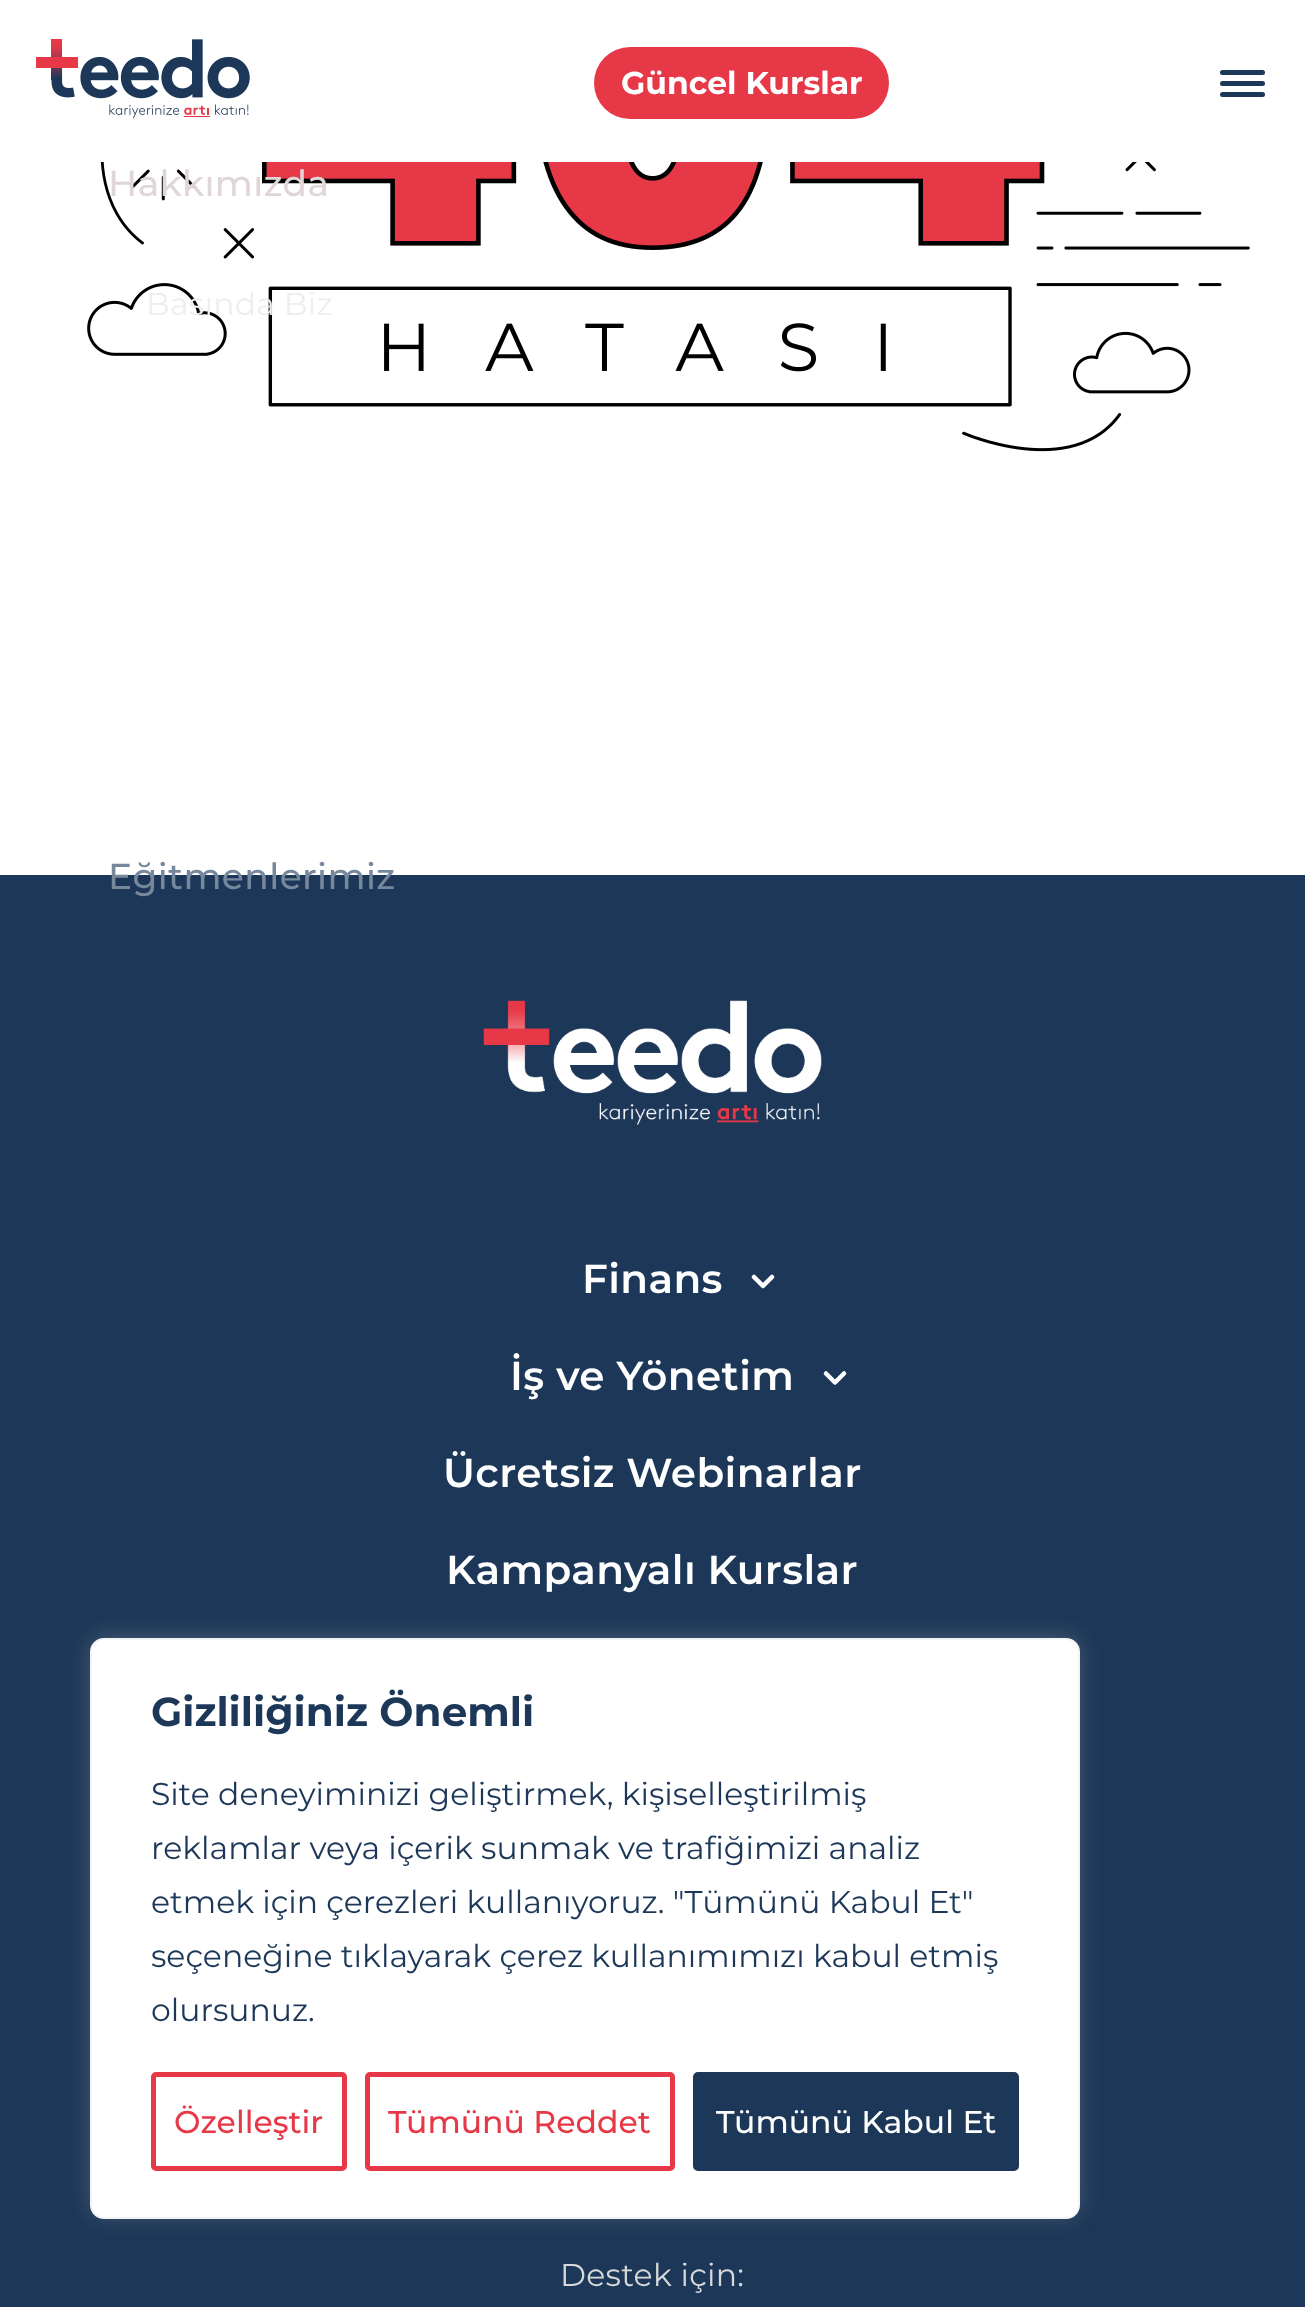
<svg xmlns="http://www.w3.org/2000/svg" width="1305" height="2307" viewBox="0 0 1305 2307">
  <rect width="100%" height="100%" fill="#fff"/>
  <image x="36" y="39" width="214" height="80" href="img/1.png"/>
  <rect x="594" y="47" width="295" height="72" rx="36" fill="#e73847"/>
  <rect x="1220" y="70" width="45" height="5" rx="2.5" fill="#1c3758"/>
  <rect x="1220" y="81" width="45" height="5" rx="2.5" fill="#1c3758"/>
  <rect x="1220" y="92" width="45" height="5" rx="2.5" fill="#1c3758"/>
  <image x="87" y="162" width="1163" height="290" href="img/2.png"/>
  <path d="M0 875h1305v1432H0z" fill="#1c3758"/>
  <image x="483" y="1000" width="339" height="125" href="img/3.png"/>
  <path d="M772 1277L763 1286L754 1277" fill="none" stroke="#fff" stroke-width="4.5" stroke-linecap="round" stroke-linejoin="round"/>
  <path d="M844 1373.5L835 1382.5L826 1373.5" fill="none" stroke="#fff" stroke-width="4.5" stroke-linecap="round" stroke-linejoin="round"/>
  <rect x="90" y="1636" width="990" height="580" rx="14" fill="#acabab4d" filter="blur(11px)"/>
  <rect x="91" y="1639" width="988" height="579" rx="13" fill="#fff" stroke="#f4f4f4" stroke-width="2"/>
  <rect x="153.5" y="2074.5" width="191" height="94" rx="2.5" fill="none" stroke="#e73847" stroke-width="5"/>
  <rect x="367.5" y="2074.5" width="305" height="94" rx="2.5" fill="none" stroke="#e73847" stroke-width="5"/>
  <rect x="695.5" y="2074.5" width="321" height="94" rx="2.5" fill="#1c3758" stroke="#1c3758" stroke-width="5"/>
  <text x="621" y="94" font-family="Montserrat" font-size="31.5" font-weight="bold" fill="#fff">Güncel Kurslar</text>
  <text x="108" y="196" font-family="Montserrat" font-size="36" font-weight="500" letter-spacing="0.4" fill="#e0d6d7">Hakkımızda</text>
  <text x="146" y="315" font-family="Montserrat" font-size="31.5" letter-spacing="0.25" fill="#eee">Basında Biz</text>
  <text x="108" y="889" font-family="Montserrat" font-size="36" font-weight="500" letter-spacing="0.4" fill="#78889c">Eğitmenlerimiz</text>
  <g font-family="Montserrat" font-size="40.5" font-weight="600" letter-spacing="0.4" fill="#fff">
    <text x="582" y="1293">Finans</text>
    <text x="510" y="1390">İş ve Yönetim</text>
    <text x="443" y="1487">Ücretsiz Webinarlar</text>
    <text x="446" y="1584">Kampanyalı Kurslar</text>
  </g>
  <text x="560" y="2286" font-family="Montserrat" font-size="31.5" letter-spacing="0.25" fill="#d6d8d9">Destek için:</text>
  <text x="151" y="1726" font-family="Montserrat" font-size="40.5" font-weight="bold" fill="#1c3758">Gizliliğiniz Önemli</text>
  <g font-family="Montserrat" font-size="31.5" fill="#1c3758">
    <text x="151" y="1805">Site deneyiminizi geliştirmek, kişiselleştirilmiş</text>
    <text x="151" y="1859">reklamlar veya içerik sunmak ve trafiğimizi analiz</text>
    <text x="151" y="1913">etmek için çerezleri kullanıyoruz. "Tümünü Kabul Et"</text>
    <text x="151" y="1967">seçeneğine tıklayarak çerez kullanımımızı kabul etmiş</text>
    <text x="151" y="2021">olursunuz.</text>
  </g>
  <g font-family="Montserrat" font-size="31.5" font-weight="500" fill="#e73847">
    <text x="174" y="2133">Özelleştir</text>
    <text x="388" y="2133">Tümünü Reddet</text>
  </g>
  <text x="716" y="2133" font-family="Montserrat" font-size="31.5" font-weight="500" fill="#fff">Tümünü Kabul Et</text>
</svg>
